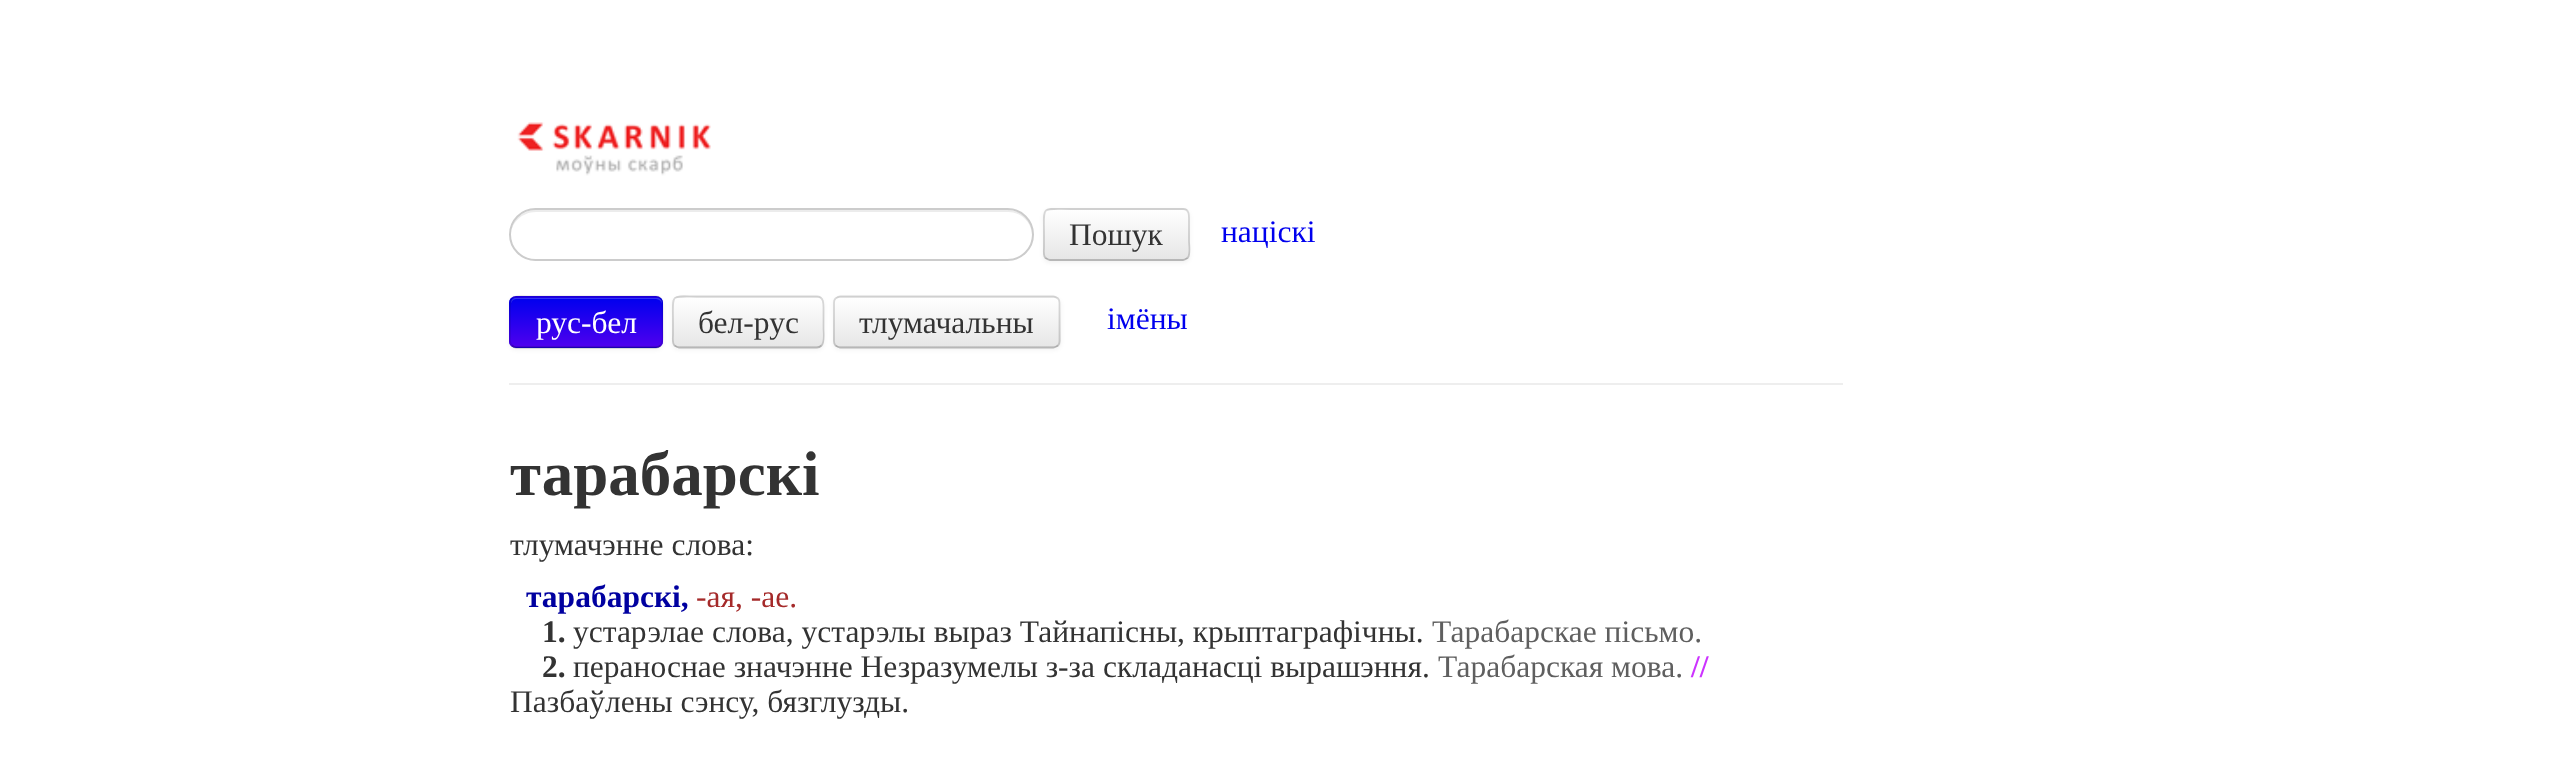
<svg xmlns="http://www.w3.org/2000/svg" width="2569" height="780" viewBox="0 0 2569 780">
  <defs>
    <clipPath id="clip1"><rect x="1043" y="208" width="147" height="53" rx="7"/></clipPath>
    <linearGradient id="g1" gradientUnits="userSpaceOnUse" x1="1117" y1="210" x2="1117" y2="259"><stop offset="0" stop-color="#fff"/><stop offset="1" stop-color="#e6e6e6"/></linearGradient>
    <clipPath id="clip2"><rect x="509" y="296" width="154" height="52" rx="7"/></clipPath>
    <linearGradient id="g2" gradientUnits="userSpaceOnUse" x1="586" y1="298" x2="586" y2="347"><stop offset="0" stop-color="#00e"/><stop offset="1" stop-color="#4f00ee"/></linearGradient>
    <clipPath id="clip3"><rect x="672" y="296" width="152" height="52" rx="7"/></clipPath>
    <linearGradient id="g3" gradientUnits="userSpaceOnUse" x1="748" y1="298" x2="748" y2="347"><stop offset="0" stop-color="#fff"/><stop offset="1" stop-color="#e6e6e6"/></linearGradient>
    <clipPath id="clip4"><rect x="833" y="296" width="228" height="52" rx="7"/></clipPath>
    <linearGradient id="g4" gradientUnits="userSpaceOnUse" x1="947" y1="298" x2="947" y2="347"><stop offset="0" stop-color="#fff"/><stop offset="1" stop-color="#e6e6e6"/></linearGradient>
  </defs>
  <rect width="100%" height="100%" fill="#fff"/>
  <image x="517" y="122" width="194" height="54" href="img/1.png"/>
  <path d="M536 212H1008C1022 212 1032 223 1032 236C1032 240 1031 243 1030 246C1032 243 1033 239 1033 234C1033 221 1022 210 1008 210H536C522 210 511 221 511 234V235C511 223 522 212 536 212Z" fill="#ececec"/>
  <rect x="510" y="209" width="523" height="51" rx="25.5" fill="none" stroke="#ccc" stroke-width="2"/>
  <rect x="1043" y="210" width="147" height="53" rx="7" fill="#0000000d" filter="blur(2px)"/>
  <rect x="1043" y="208" width="147" height="53" rx="7" fill="#f5f5f5"/>
  <g clip-path="url(#clip1)">
    <path d="M1043 210h147v49H1043z" fill="url(#g1)"/>
  </g>
  <path d="M1187.5 258C1186 259 1184.5 260 1183 260H1050C1048.5 260 1047 259 1045.5 258" fill="none" stroke="#00000040" stroke-width="1.8"/>
  <path d="M1045.5 258C1043 255.5 1044 250.5 1044 247.5V234.5C1044 204.5 1040 209 1072 209H1183C1190 209 1189 217 1189 221.5V241C1189 245 1191 254.5 1187.5 258" fill="none" stroke="#00000026" stroke-width="1.8"/>
  <rect x="509" y="298" width="154" height="52" rx="7" fill="#0000000d" filter="blur(2px)"/>
  <rect x="509" y="296" width="154" height="52" rx="7" fill="#2000ee"/>
  <g clip-path="url(#clip2)">
    <path d="M509 298h154v49H509z" fill="url(#g2)"/>
  </g>
  <path d="M516 299H656C659 299 662 302 662 304V303C662 300 660 298 657 298H516C513 298 511 300 511 303V304C511 302 513 299 516 299Z" fill="#ffffff33"/>
  <path d="M660.5 345.5C659.5 346.5 658 347.5 656 347.5H516C514.5 347.5 513 346.5 512 345.5" fill="none" stroke="#00000040" stroke-width="1.8"/>
  <path d="M512 345.5C509 343 510 338 510 335V322C510 291.5 506.5 296.5 539.5 296.5H656C663 296.5 662.5 304.5 662.5 309V328.5C662.5 332.5 664 342 660.5 345.5" fill="none" stroke="#0000001a" stroke-width="1.8"/>
  <rect x="672" y="298" width="152" height="52" rx="7" fill="#0000000d" filter="blur(2px)"/>
  <rect x="672" y="296" width="152" height="52" rx="7" fill="#f5f5f5"/>
  <g clip-path="url(#clip3)">
    <path d="M672 298h152v49H672z" fill="url(#g3)"/>
  </g>
  <path d="M679 299H817C820 299 822 302 822 304V343L821 346C822 345 823 343 823 342V303C823 300 821 298 818 298H679C676 298 674 300 674 303V304C674 302 676 299 679 299Z" fill="#ffffff33"/>
  <path d="M821.5 345.5C820.5 346.5 819 347.5 817 347.5H679C677.5 347.5 676 346.5 674.5 345.5" fill="none" stroke="#00000040" stroke-width="1.8"/>
  <path d="M674.5 345.5C672 343 673 338 673 335V322C673 291.5 669 296.5 702 296.5H817C824 296.5 823.5 304.5 823.5 309V328.5C823.5 332.5 825 342 821.5 345.5" fill="none" stroke="#00000026" stroke-width="1.8"/>
  <rect x="833" y="298" width="228" height="52" rx="7" fill="#0000000d" filter="blur(2px)"/>
  <rect x="833" y="296" width="228" height="52" rx="7" fill="#f5f5f5"/>
  <g clip-path="url(#clip4)">
    <path d="M833 298h228v49H833z" fill="url(#g4)"/>
  </g>
  <path d="M1058 345.5C1056.5 346.5 1055 347.5 1053.5 347.5H840C838.5 347.5 837 346.5 835.5 345.5" fill="none" stroke="#00000040" stroke-width="1.8"/>
  <path d="M835.5 345.5C834.5 344.5 834 343 834 341V303C834 301 834.5 299.5 835.5 298.5C837 297.5 838.5 296.5 840 296.5H1053.5C1055 296.5 1056.5 297.5 1058 298.5C1059 299.5 1059.5 301 1059.5 303V341C1059.5 343 1059 344.5 1058 345.5" fill="none" stroke="#00000026" stroke-width="1.8"/>
  <path d="M509 383h1334v2H509z" fill="#eee"/>
  <text x="1069" y="245" font-family="Liberation Serif" font-size="31.5" fill="#333">Пошук</text>
  <text x="1221" y="242" font-family="Liberation Serif" font-size="31.5" fill="#00e">націскі</text>
  <text x="536" y="333" font-family="Liberation Serif" font-size="31.5" fill="#fff">рус-бел</text>
  <g font-family="Liberation Serif" font-size="31.5" fill="#333">
    <text x="698" y="333">бел-рус</text>
    <text x="859" y="333">тлумачальны</text>
  </g>
  <text x="1107" y="329" font-family="Liberation Serif" font-size="31.5" fill="#00e">імёны</text>
  <text x="510" y="495" font-family="Liberation Serif" font-size="63" font-weight="bold" fill="#333">тарабарскі</text>
  <text x="510" y="555" font-family="Liberation Serif" font-size="31.5" fill="#333">тлумачэнне слова:</text>
  <text x="526" y="607" font-family="Liberation Serif" font-size="31.5" font-weight="bold" fill="#0000a0">тарабарскі,</text>
  <text x="696" y="607" font-family="Liberation Serif" font-size="31.5" fill="#a52a2a">-ая, -ае.</text>
  <text x="542" y="642" font-family="Liberation Serif" font-size="31.5" font-weight="bold" fill="#333">1.</text>
  <text x="573" y="642" font-family="Liberation Serif" font-size="31.5" fill="#333">устарэлае слова, устарэлы выраз Тайнапісны, крыптаграфічны.</text>
  <text x="1432" y="642" font-family="Liberation Serif" font-size="31.5" fill="#5f5f5f">Тарабарскае пісьмо.</text>
  <text x="542" y="677" font-family="Liberation Serif" font-size="31.5" font-weight="bold" fill="#333">2.</text>
  <text x="573" y="677" font-family="Liberation Serif" font-size="31.5" fill="#333">пераноснае значэнне Незразумелы з-за складанасці вырашэння.</text>
  <text x="1438" y="677" font-family="Liberation Serif" font-size="31.5" fill="#5f5f5f">Тарабарская мова.</text>
  <text x="1691" y="677" font-family="Liberation Serif" font-size="31.5" font-weight="bold" fill="#c3f">//</text>
  <text x="510" y="712" font-family="Liberation Serif" font-size="31.5" fill="#333">Пазбаўлены сэнсу, бязглузды.</text>
</svg>
